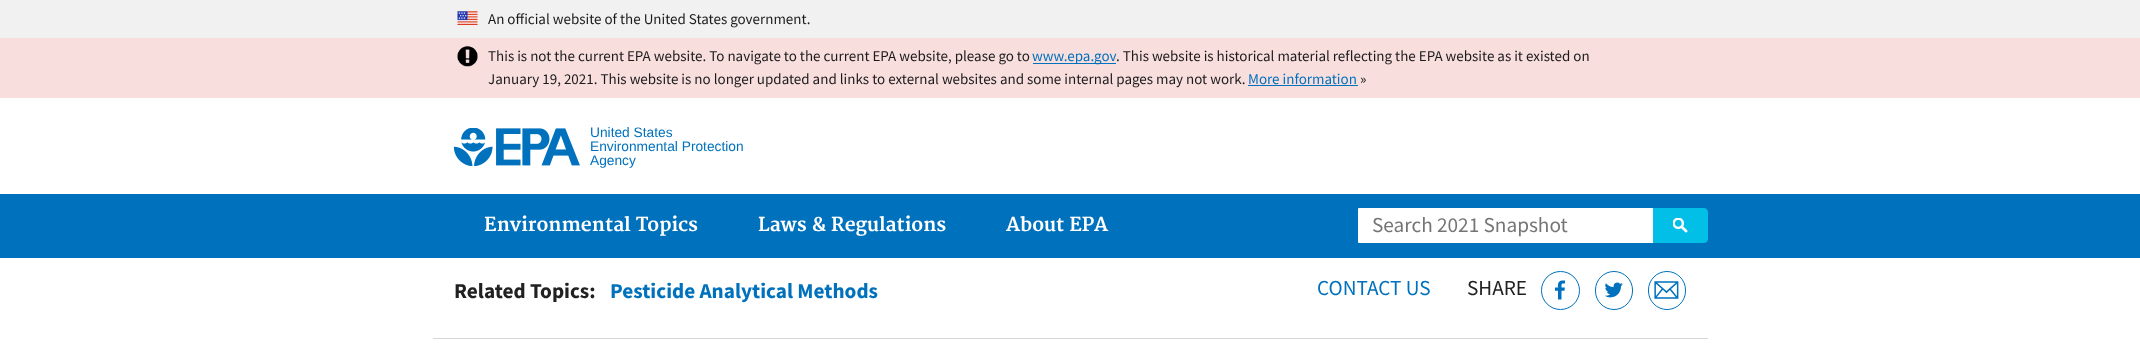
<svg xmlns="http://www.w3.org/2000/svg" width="2140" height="355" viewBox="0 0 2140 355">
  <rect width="100%" height="100%" fill="#fff"/>
  <path d="M0 0h2140v38H0z" fill="#f1f1f1"/>
  <image x="457" y="11" width="21" height="14" href="img/1.png"/>
  <path d="M0 38h2140v60H0z" fill="#f9dede"/>
  <image x="457" y="46" width="21" height="21" href="img/2.png"/>
  <path d="M1033 63h83v1H1033z" fill="#0071bc"/>
  <path d="M1248 85h110v1H1248z" fill="#0071bc"/>
  <image x="454" y="128" width="126" height="38" href="img/3.png"/>
  <path d="M0 194h2140v64H0z" fill="#0071bc"/>
  <path d="M1359 209h294v33H1359z" fill="#fff"/>
  <path d="M1358.5 208.5h327v34H1358.5z" fill="none" stroke="#fff"/>
  <path d="M1653 208H1704C1706 208 1708 210 1708 212V239C1708 241 1706 243 1704 243H1653Z" fill="#02bfe7"/>
  <image x="1673" y="218" width="15" height="15" href="img/4.png"/>
  <path d="M433 338h1275v1H433z" fill="#d6d7d9"/>
  <circle cx="1560.5" cy="290.5" r="19" fill="none" stroke="#0071bc"/>
  <image x="1555" y="280" width="10" height="20" href="img/5.png"/>
  <rect x="1595.5" y="271.5" width="37" height="38" rx="18.5" fill="none" stroke="#0071bc"/>
  <image x="1605" y="282" width="18" height="16" href="img/6.png"/>
  <rect x="1648.5" y="271.5" width="37" height="38" rx="18.5" fill="none" stroke="#0071bc"/>
  <image x="1654" y="281" width="25" height="18" href="img/7.png"/>
  <g font-family="Source Sans Pro" font-size="15" fill="#1b1b1b">
    <text x="488" y="24">An official website of the United States government.</text>
    <text x="488" y="61">This is not the current EPA website. To navigate to the current EPA website, please go to</text>
  </g>
  <text x="1032" y="61" font-family="Source Sans Pro" font-size="15" fill="#0071bc">www.epa.gov</text>
  <g font-family="Source Sans Pro" font-size="15" fill="#1b1b1b">
    <text x="1116" y="61">. This website is historical material reflecting the EPA website as it existed on</text>
    <text x="488" y="84">January 19, 2021. This website is no longer updated and links to external websites and some internal pages may not work.</text>
  </g>
  <text x="1248" y="84" font-family="Source Sans Pro" font-size="15" fill="#0071bc">More information</text>
  <text x="1360" y="84" font-family="Source Sans Pro" font-size="15" fill="#1b1b1b">»</text>
  <g font-family="Liberation Sans" font-size="13.75" fill="#0071bc">
    <text x="590" y="137">United States</text>
    <text x="590" y="151">Environmental Protection</text>
    <text x="590" y="165">Agency</text>
  </g>
  <text x="1372" y="232" font-family="Source Sans Pro" font-size="21.25" fill="#757575">Search 2021 Snapshot</text>
  <g font-family="Merriweather" font-size="18.75" font-weight="bold" fill="#fff">
    <text x="484" y="231">Environmental Topics</text>
    <text x="758" y="231">Laws &amp; Regulations</text>
    <text x="1006" y="231">About EPA</text>
  </g>
  <text x="454" y="298" font-family="Source Sans Pro" font-size="21.25" font-weight="bold" fill="#212121">Related Topics:</text>
  <text x="610" y="298" font-family="Source Sans Pro" font-size="21.25" font-weight="bold" fill="#0071bc">Pesticide Analytical Methods</text>
  <text x="1317" y="295" font-family="Source Sans Pro" font-size="21.25" fill="#0071bc">CONTACT US</text>
  <text x="1467" y="295" font-family="Source Sans Pro" font-size="21.25" fill="#212121">SHARE</text>
</svg>
